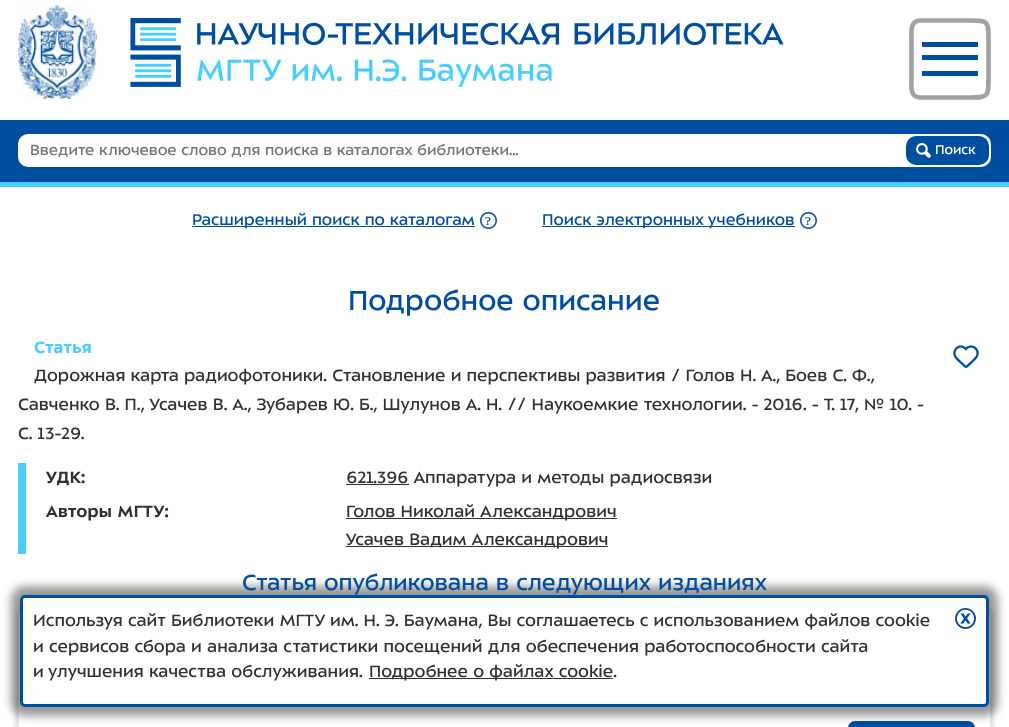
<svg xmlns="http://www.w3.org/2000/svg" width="1009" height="727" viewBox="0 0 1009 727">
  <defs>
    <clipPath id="clip1"><path d="M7 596H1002V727H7ZM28 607H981C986.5 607 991 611.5 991 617V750C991 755.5 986.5 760 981 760H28C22.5 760 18 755.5 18 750V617C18 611.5 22.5 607 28 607Z" clip-rule="evenodd"/></clipPath>
  </defs>
  <rect width="100%" height="100%" fill="#fff"/>
  <image x="18" y="5" width="79" height="94" href="img/1.png"/>
  <image x="130" y="18" width="654" height="69" href="img/2.png"/>
  <path d="M922 42H978V47H922ZM922 71H978V76H922ZM922 55H978V60H922Z" fill="#004e9f"/>
  <path d="M920.5 20.5H970C988 20.5 988.5 21 988.5 39V78.5C988.5 97 988 97.5 970 97.5H920.5C909.5 97.5 911.5 86 911.5 78.5V39C911.5 32.5 909.5 20.5 920.5 20.5Z" fill="none" stroke="#a2a2a2" stroke-width="4.6"/>
  <path d="M0 120h1009v62H0z" fill="#004e9f"/>
  <path d="M0 182h1009v5H0z" fill="#47ceff"/>
  <rect x="18" y="134" width="973" height="33" rx="10" fill="#fff"/>
  <rect x="906" y="136" width="83" height="29" rx="10" fill="#004e9f"/>
  <image x="916" y="143" width="15" height="15" href="img/3.png"/>
  <path d="M192 226h283v1H192z" fill="#004e9f"/>
  <image x="480" y="212" width="17" height="17" href="img/4.png"/>
  <path d="M542 226h253v1H542z" fill="#004e9f"/>
  <image x="800" y="212" width="17" height="17" href="img/4.png"/>
  <image x="953" y="345" width="26" height="23" href="img/5.png"/>
  <path d="M18 463h8v91H18z" fill="#47ceff"/>
  <path d="M346 484h63v1H346z" fill="#303030"/>
  <path d="M346 518h271v1H346z" fill="#303030"/>
  <path d="M346 546h262v1H346z" fill="#303030"/>
  <g clip-path="url(#clip1)">
    <rect x="17" y="606" width="975" height="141" rx="11" fill="#00000033" filter="blur(3px)"/>
  </g>
  <rect x="18.5" y="607.5" width="972" height="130" rx="9.5" fill="none" stroke="#e7e7e7"/>
  <rect x="848" y="721" width="127" height="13" rx="7" fill="#004e9f"/>
  <rect x="11" y="586" width="987" height="130" rx="14" fill="#00000066" filter="blur(4.5px)"/>
  <rect x="21.5" y="596.5" width="966" height="109" rx="3.5" fill="#fff" stroke="#004e9f" stroke-width="3"/>
  <path d="M369 678h244v1H369z" fill="#303030"/>
  <image x="955" y="608" width="21" height="21" href="img/6.png"/>
  <text x="30" y="155" font-family="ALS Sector" font-size="16" fill="#757575">Введите ключевое слово для поиска в каталогах библиотеки...</text>
  <text x="935" y="154" font-family="ALS Sector" font-size="14" fill="#fff">Поиск</text>
  <g font-family="ALS Sector" font-size="17" fill="#004e9f">
    <text x="192" y="225">Расширенный поиск по каталогам</text>
    <text x="542" y="225">Поиск электронных учебников</text>
  </g>
  <text x="348" y="310" font-family="ALS Sector" font-size="30" fill="#004e9f">Подробное описание</text>
  <text x="34" y="353" font-family="ALS Sector" font-size="18" font-weight="bold" fill="#47ceff">Статья</text>
  <g font-family="ALS Sector" font-size="18" fill="#303030">
    <text x="34" y="381">Дорожная карта радиофотоники. Становление и перспективы развития / Голов Н. А., Боев С. Ф.,</text>
    <text x="18" y="410">Савченко В. П., Усачев В. А., Зубарев Ю. Б., Шулунов А. Н. // Наукоемкие технологии. - 2016. - Т. 17, № 10. -</text>
    <text x="18" y="439">С. 13-29.</text>
  </g>
  <text x="46" y="483" font-family="ALS Sector" font-size="18" font-weight="bold" fill="#303030">УДК:</text>
  <text x="346" y="483" font-family="ALS Sector" font-size="18" fill="#303030">621.396 Аппаратура и методы радиосвязи</text>
  <text x="46" y="517" font-family="ALS Sector" font-size="18" font-weight="bold" fill="#303030">Авторы МГТУ:</text>
  <g font-family="ALS Sector" font-size="18" fill="#303030">
    <text x="346" y="517">Голов Николай Александрович</text>
    <text x="346" y="545">Усачев Вадим Александрович</text>
  </g>
  <text x="242" y="590" font-family="ALS Sector" font-size="24" fill="#004e9f">Статья опубликована в следующих изданиях</text>
  <g font-family="ALS Sector" font-size="18" fill="#303030">
    <text x="33" y="626">Используя сайт Библиотеки МГТУ им. Н. Э. Баумана, Вы соглашаетесь с использованием файлов cookie</text>
    <text x="33" y="652">и сервисов сбора и анализа статистики посещений для обеспечения работоспособности сайта</text>
    <text x="33" y="677">и улучшения качества обслуживания.</text>
    <text x="369" y="677">Подробнее о файлах cookie.</text>
  </g>
</svg>
